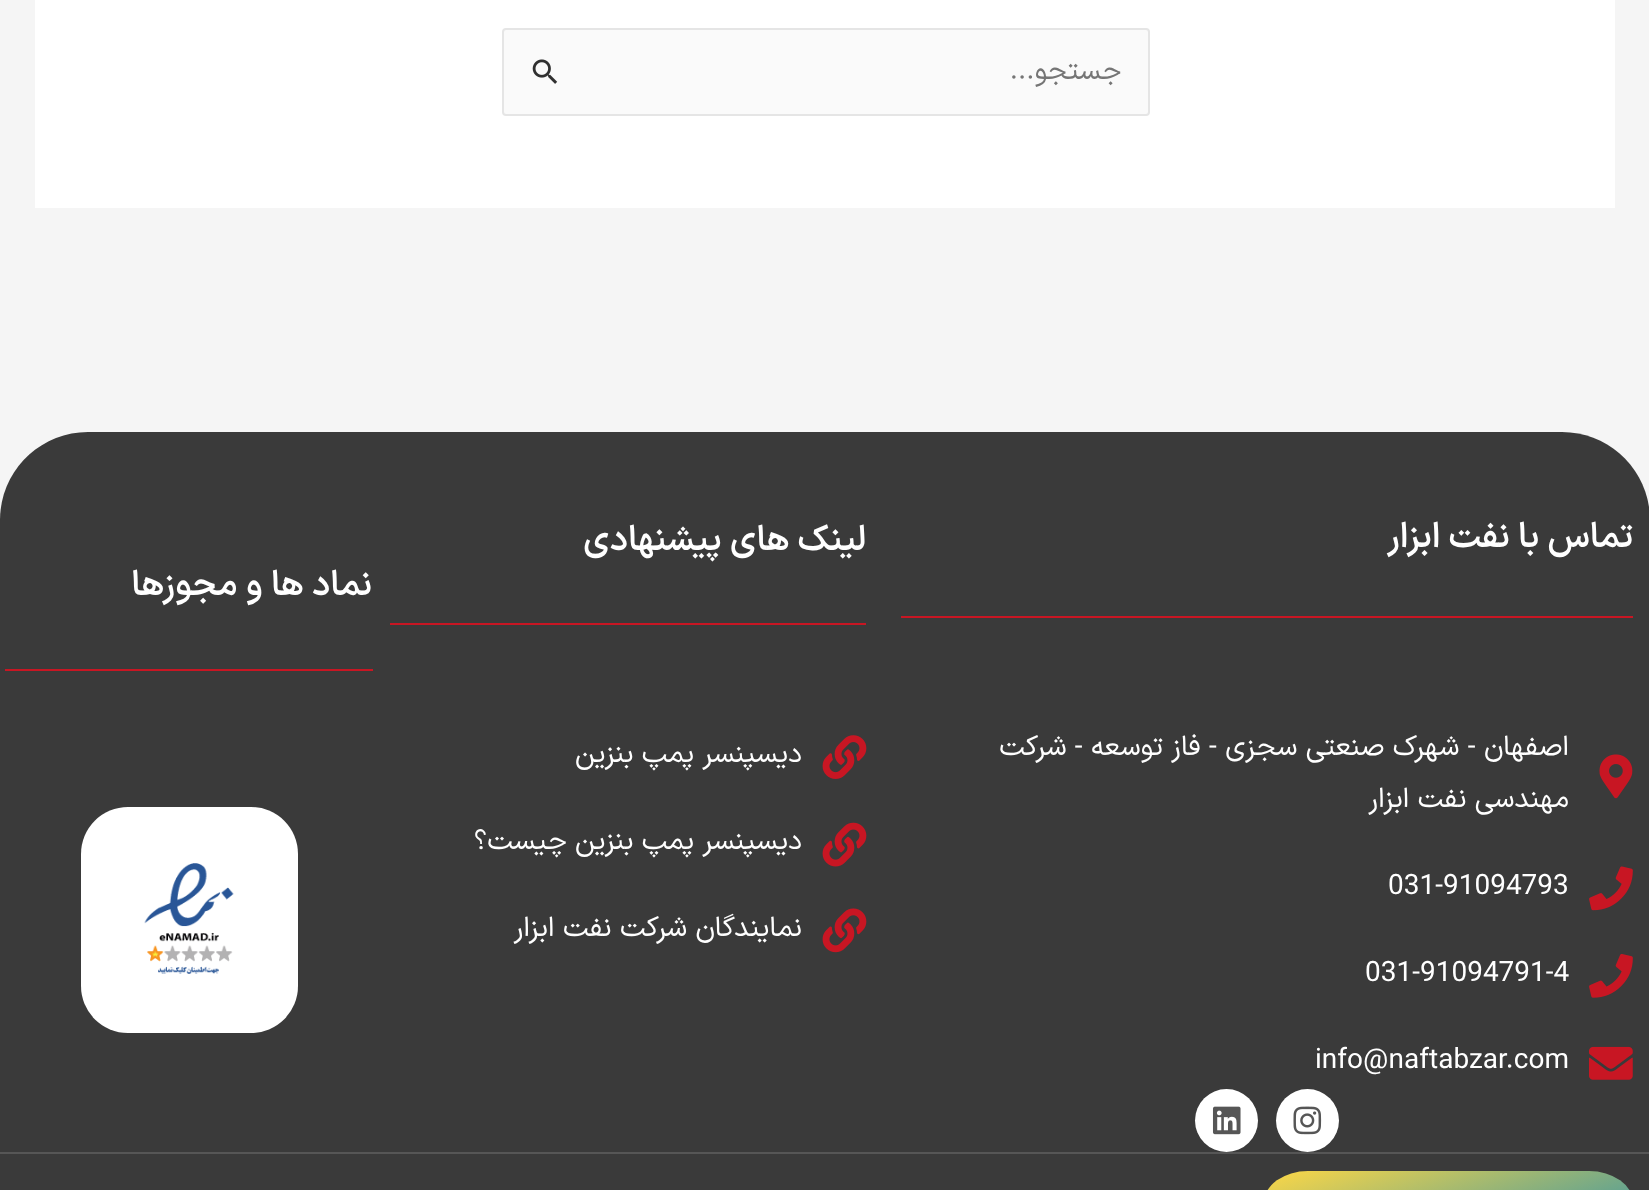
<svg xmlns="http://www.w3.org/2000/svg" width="1649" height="1190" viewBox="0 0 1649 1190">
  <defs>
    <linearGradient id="g1" gradientUnits="userSpaceOnUse" x1="1411" y1="1120" x2="1485" y2="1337"><stop offset="0" stop-color="#fed845"/><stop offset="1" stop-color="#0081bf"/></linearGradient>
  </defs>
  <rect width="100%" height="100%" fill="#f5f5f5"/>
  <path d="M35 0h1580v208H35z" fill="#fff"/>
  <rect x="503" y="29" width="646" height="86" rx="3" fill="#fafafa" stroke="#e5e5e5" stroke-width="2"/>
  <image x="532" y="59" width="26" height="25" href="img/1.png"/>
  <path d="M88 432H1562C1610.5 432 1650 471.5 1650 520V1152H0V520C0 471.5 39.5 432 88 432Z" fill="#3a3a3a"/>
  <path d="M901 616h732v2H901z" fill="#c81623"/>
  <image x="1599" y="754" width="34" height="45" href="img/2.png"/>
  <image x="1589" y="866" width="44" height="45" href="img/3.png"/>
  <image x="1589" y="954" width="44" height="44" href="img/4.png"/>
  <image x="1589" y="1046" width="44" height="34" href="img/5.png"/>
  <circle cx="1307.5" cy="1120.5" r="31.5" fill="#fff"/>
  <image x="1293" y="1106" width="29" height="29" href="img/6.png"/>
  <circle cx="1226.5" cy="1120.5" r="31.5" fill="#fff"/>
  <image x="1212" y="1106" width="29" height="29" href="img/7.png"/>
  <path d="M390 623h476v2H390z" fill="#c81623"/>
  <image x="822" y="735" width="45" height="44" href="img/8.png"/>
  <image x="822" y="822" width="45" height="45" href="img/9.png"/>
  <image x="822" y="908" width="45" height="45" href="img/10.png"/>
  <path d="M5 669h368v2H5z" fill="#c81623"/>
  <rect x="81" y="807" width="217" height="226" rx="47" fill="#fff"/>
  <image x="144" y="863" width="90" height="111" href="img/11.png"/>
  <path d="M0 1154h1649v36H0z" fill="#3a3a3a"/>
  <path d="M0 1152h1649v2H0z" fill="#565656"/>
  <rect x="1264" y="1171" width="369" height="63" rx="44" fill="url(#g1)"/>
  <text x="1121" y="79" font-family="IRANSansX" font-size="28" direction="rtl" fill="#757575">جستجو...</text>
  <text x="1633" y="547" font-family="IRANSansX" font-size="35" font-weight="600" direction="rtl" fill="#fff">تماس با نفت ابزار</text>
  <g font-family="IRANSansX" font-size="28" direction="rtl" fill="#fff">
    <text x="1569" y="755">اصفهان - شهرک صنعتی سجزی - فاز توسعه - شرکت</text>
    <text x="1569" y="807">مهندسی نفت ابزار</text>
  </g>
  <g font-family="IRANSansX" font-size="28" fill="#fff">
    <text x="1388" y="894">031-91094793</text>
    <text x="1365" y="981">031-91094791-4</text>
    <text x="1315" y="1068">info@naftabzar.com</text>
  </g>
  <text x="866" y="550" font-family="IRANSansX" font-size="35" font-weight="600" direction="rtl" fill="#fff">لینک های پیشنهادی</text>
  <g font-family="IRANSansX" font-size="28" direction="rtl" fill="#fff">
    <text x="802" y="762">دیسپنسر پمپ بنزین</text>
    <text x="802" y="849">دیسپنسر پمپ بنزین چیست؟</text>
    <text x="802" y="936">نمایندگان شرکت نفت ابزار</text>
  </g>
  <text x="372" y="595" font-family="IRANSansX" font-size="35" font-weight="600" direction="rtl" fill="#fff">نماد ها و مجوزها</text>
</svg>
